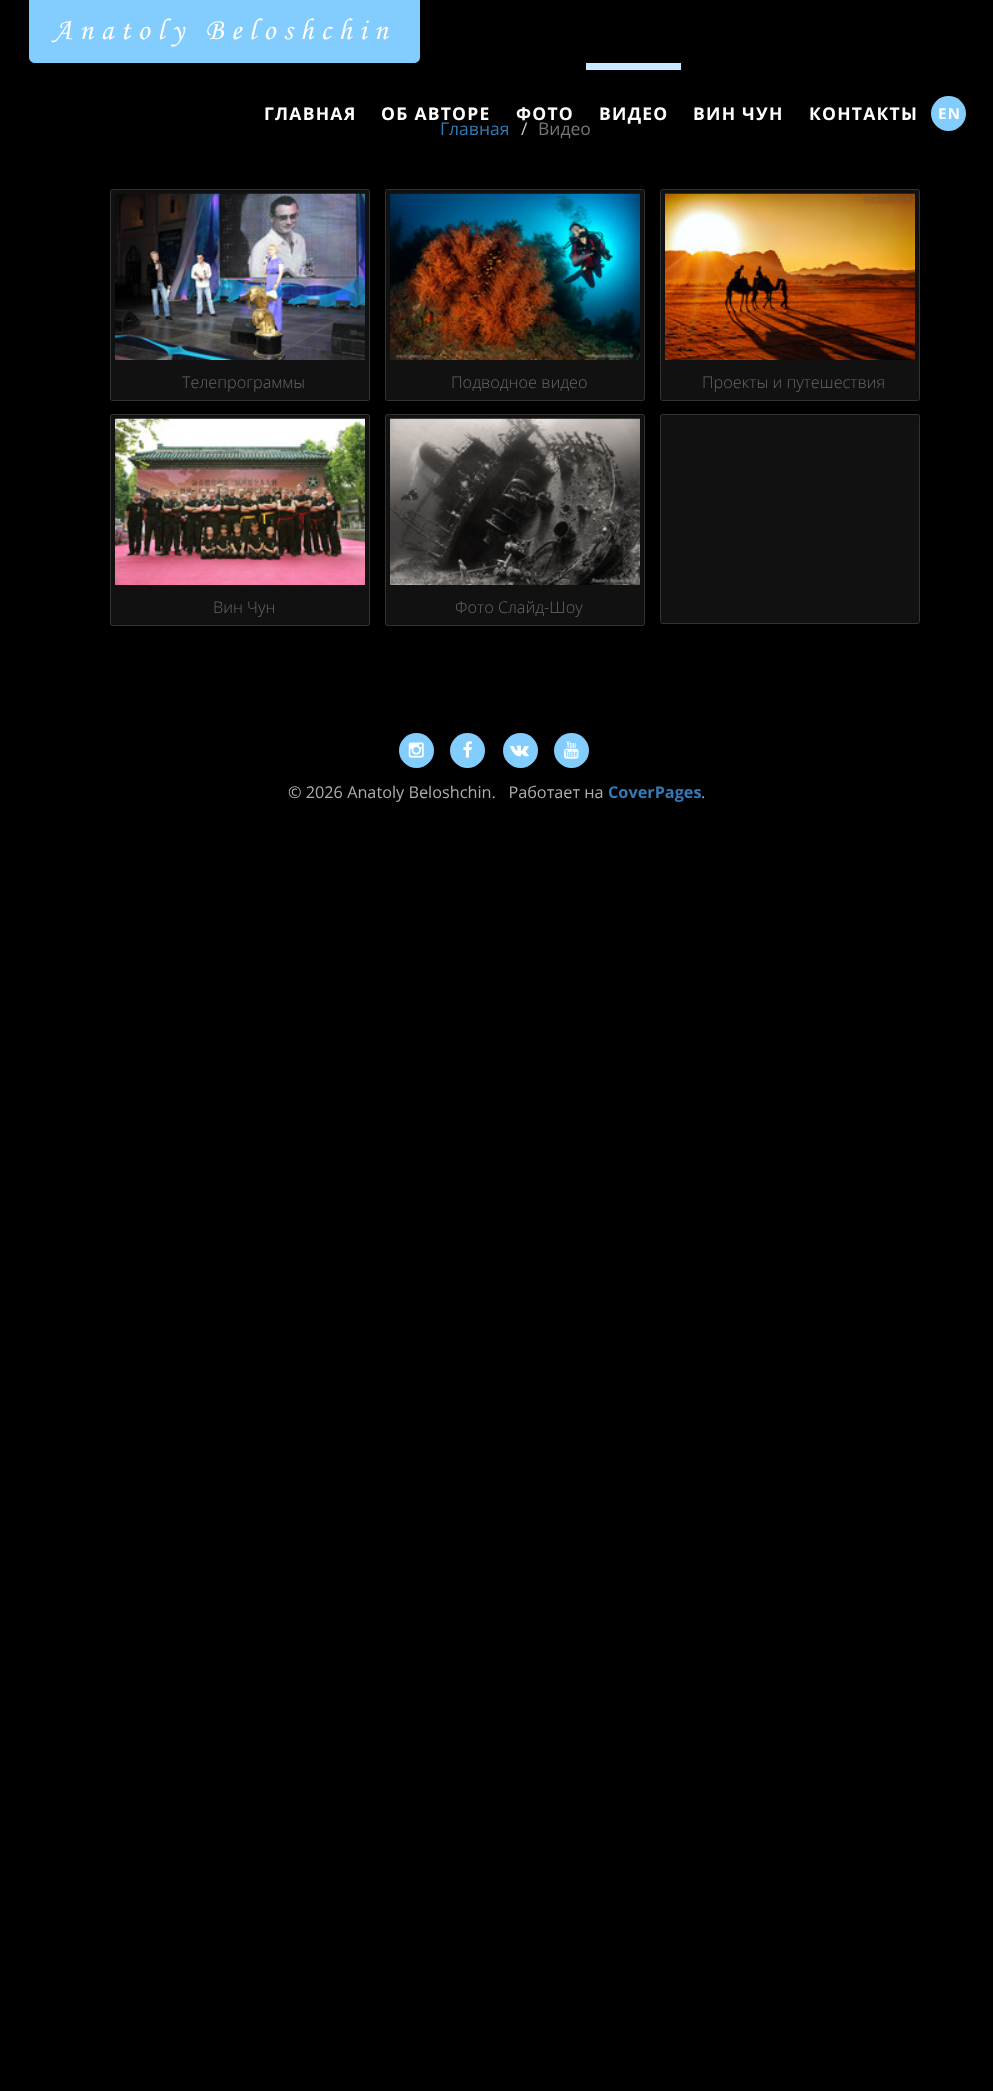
<svg xmlns="http://www.w3.org/2000/svg" width="993" height="2091" viewBox="0 0 993 2091">
  <rect width="100%" height="100%" fill="#000"/>
  <path d="M29 0H420V57C420 60.5 417.5 63 414 63H35C31.5 63 29 60.5 29 57Z" fill="#83cdfe"/>
  <path d="M586 63h95v7H586z" fill="#c8e9ff"/>
  <circle cx="948.5" cy="113.5" r="17.5" fill="#83cdfe"/>
  <rect x="110.5" y="189.5" width="259" height="211" rx="2" fill="#111" stroke="#333"/>
  <image x="115" y="193" width="250" height="167" href="img/1.png"/>
  <rect x="385.5" y="189.5" width="259" height="211" rx="2" fill="#111" stroke="#333"/>
  <image x="390" y="193" width="250" height="167" href="img/2.png"/>
  <rect x="660.5" y="189.5" width="259" height="211" rx="2" fill="#111" stroke="#333"/>
  <image x="665" y="193" width="250" height="167" href="img/3.png"/>
  <rect x="110.5" y="414.5" width="259" height="211" rx="2" fill="#111" stroke="#333"/>
  <image x="115" y="418" width="250" height="167" href="img/4.png"/>
  <rect x="385.5" y="414.5" width="259" height="211" rx="2" fill="#111" stroke="#333"/>
  <image x="390" y="418" width="250" height="167" href="img/5.png"/>
  <rect x="660.5" y="414.5" width="259" height="209" rx="2" fill="#111" stroke="#333"/>
  <circle cx="416.5" cy="750.5" r="17.5" fill="#83cdfe"/>
  <image x="408" y="742" width="16" height="16" href="img/6.png"/>
  <circle cx="467.5" cy="750.5" r="17.5" fill="#83cdfe"/>
  <image x="463" y="741" width="9" height="17" href="img/7.png"/>
  <circle cx="520.5" cy="750.5" r="17.5" fill="#83cdfe"/>
  <image x="510" y="745" width="19" height="12" href="img/8.png"/>
  <circle cx="571.5" cy="750.5" r="17.5" fill="#83cdfe"/>
  <image x="564" y="741" width="15" height="18" href="img/9.png"/>
  <text x="53" y="39" font-family="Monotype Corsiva" font-size="30" font-style="italic" letter-spacing="7.5" fill="#fff">Anatoly Beloshchin</text>
  <g font-family="Open Sans" font-size="17.5" font-weight="bold" letter-spacing="1.25" fill="#fff">
    <text x="264" y="120">ГЛАВНАЯ</text>
    <text x="381" y="120">ОБ АВТОРЕ</text>
    <text x="516" y="120">ФОТО</text>
    <text x="599" y="120">ВИДЕО</text>
    <text x="693" y="120">ВИН ЧУН</text>
    <text x="809" y="120">КОНТАКТЫ</text>
  </g>
  <text x="938" y="119" font-family="Open Sans" font-size="15" font-weight="bold" letter-spacing="1.25" fill="#fff">EN</text>
  <text x="440" y="135" font-family="Open Sans" font-size="17.5" fill="#337ab7">Главная</text>
  <text x="521" y="135" font-family="Open Sans" font-size="17.5" fill="#ccc">/</text>
  <text x="538" y="135" font-family="Open Sans" font-size="17.5" fill="#777">Видео</text>
  <g font-family="Open Sans" font-size="16.25" font-weight="300" fill="#666">
    <text x="182" y="388">Телепрограммы</text>
    <text x="451" y="388">Подводное видео</text>
    <text x="702" y="388">Проекты и путешествия</text>
    <text x="213" y="613">Вин Чун</text>
    <text x="455" y="613">Фото Слайд-Шоу</text>
  </g>
  <text x="288" y="798" font-family="Open Sans" font-size="16.25" fill="#aeaeae" xml:space="preserve">© 2026 Anatoly Beloshchin.   Работает на</text>
  <text x="608" y="798" font-family="Open Sans" font-size="16.25" font-weight="bold" fill="#337ab7">CoverPages</text>
  <text x="701" y="798" font-family="Open Sans" font-size="16.25" fill="#aeaeae">.</text>
</svg>
